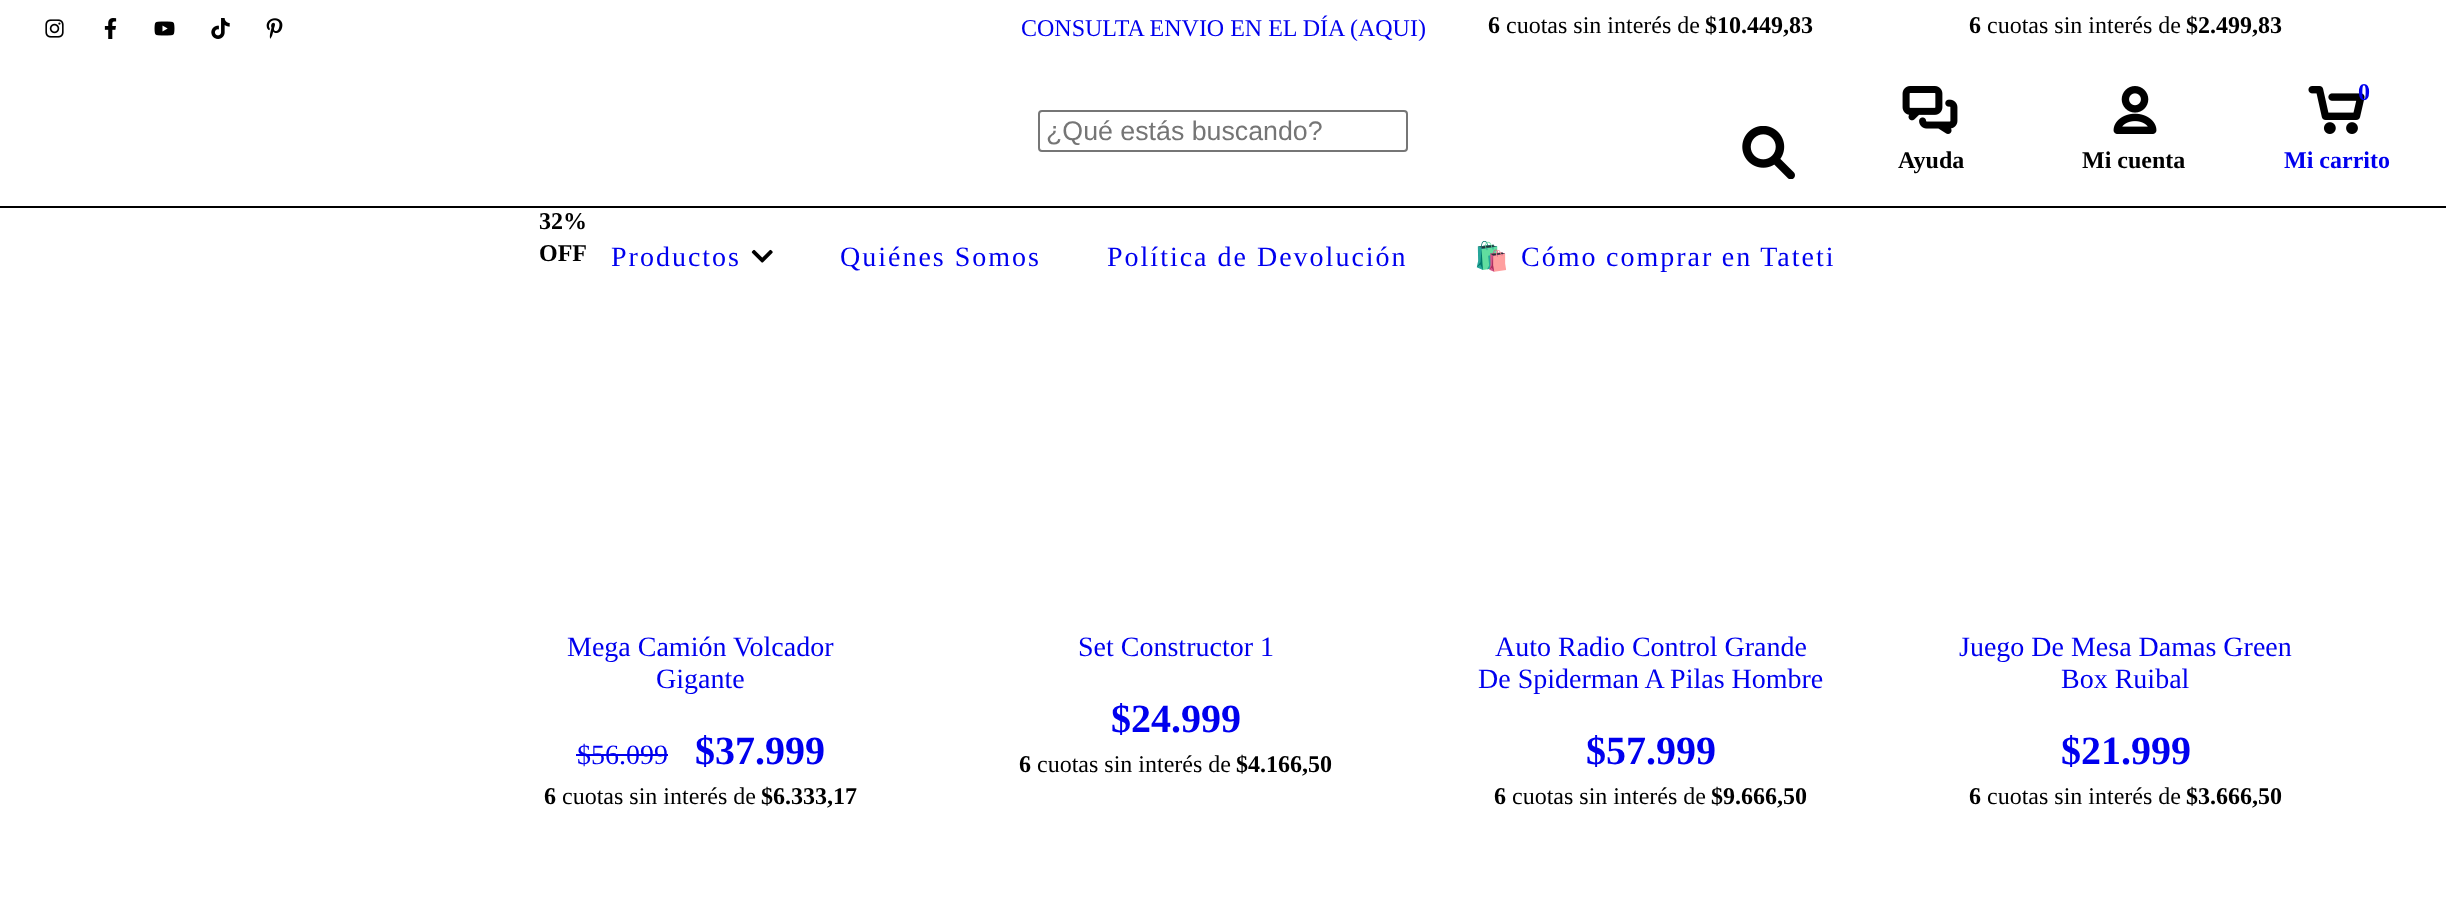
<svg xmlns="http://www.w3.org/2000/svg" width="2446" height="922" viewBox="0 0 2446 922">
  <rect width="100%" height="100%" fill="#fff"/>
  <path d="M576 754h92v2H576z" fill="#00e"/>
  <image x="45" y="19" width="19" height="19" href="img/1.png"/>
  <image x="104" y="18" width="13" height="21" href="img/2.png"/>
  <image x="154" y="21" width="21" height="15" href="img/3.png"/>
  <image x="211" y="18" width="19" height="21" href="img/4.png"/>
  <image x="266" y="18" width="17" height="21" href="img/5.png"/>
  <rect x="1039" y="111" width="368" height="40" rx="3" fill="none" stroke="#767676" stroke-width="2"/>
  <image x="1742" y="126" width="53" height="53" href="img/6.png"/>
  <image x="1902" y="86" width="56" height="48" href="img/7.png"/>
  <image x="2113" y="86" width="44" height="48" href="img/8.png"/>
  <image x="2308" y="86" width="57" height="48" href="img/9.png"/>
  <path d="M0 206h2446v2H0z" fill="#000"/>
  <image x="751" y="249" width="22" height="14" href="img/10.png"/>
  <text x="1488" y="33" font-family="Liberation Serif" font-size="24" font-weight="bold" fill="#000">6</text>
  <text x="1506" y="33" font-family="Liberation Serif" font-size="24" fill="#000">cuotas sin interés de</text>
  <g font-family="Liberation Serif" font-size="24" font-weight="bold" fill="#000">
    <text x="1705" y="33">$10.449,83</text>
    <text x="1969" y="33">6</text>
  </g>
  <text x="1987" y="33" font-family="Liberation Serif" font-size="24" fill="#000">cuotas sin interés de</text>
  <g font-family="Liberation Serif" font-size="24" font-weight="bold" fill="#000">
    <text x="2186" y="33">$2.499,83</text>
    <text x="539" y="229">32%</text>
    <text x="539" y="261">OFF</text>
  </g>
  <g font-family="Liberation Serif" font-size="28" fill="#00e">
    <text x="567" y="656">Mega Camión Volcador</text>
    <text x="656" y="688">Gigante</text>
    <text x="577" y="764">$56.099</text>
  </g>
  <text x="695" y="764" font-family="Liberation Serif" font-size="40" font-weight="bold" fill="#00e">$37.999</text>
  <text x="544" y="804" font-family="Liberation Serif" font-size="24" font-weight="bold" fill="#000">6</text>
  <text x="562" y="804" font-family="Liberation Serif" font-size="24" fill="#000">cuotas sin interés de</text>
  <text x="761" y="804" font-family="Liberation Serif" font-size="24" font-weight="bold" fill="#000">$6.333,17</text>
  <text x="1078" y="656" font-family="Liberation Serif" font-size="28" fill="#00e">Set Constructor 1</text>
  <text x="1111" y="732" font-family="Liberation Serif" font-size="40" font-weight="bold" fill="#00e">$24.999</text>
  <text x="1019" y="772" font-family="Liberation Serif" font-size="24" font-weight="bold" fill="#000">6</text>
  <text x="1037" y="772" font-family="Liberation Serif" font-size="24" fill="#000">cuotas sin interés de</text>
  <text x="1236" y="772" font-family="Liberation Serif" font-size="24" font-weight="bold" fill="#000">$4.166,50</text>
  <g font-family="Liberation Serif" font-size="28" fill="#00e">
    <text x="1495" y="656">Auto Radio Control Grande</text>
    <text x="1478" y="688">De Spiderman A Pilas Hombre</text>
  </g>
  <text x="1586" y="764" font-family="Liberation Serif" font-size="40" font-weight="bold" fill="#00e">$57.999</text>
  <text x="1494" y="804" font-family="Liberation Serif" font-size="24" font-weight="bold" fill="#000">6</text>
  <text x="1512" y="804" font-family="Liberation Serif" font-size="24" fill="#000">cuotas sin interés de</text>
  <text x="1711" y="804" font-family="Liberation Serif" font-size="24" font-weight="bold" fill="#000">$9.666,50</text>
  <g font-family="Liberation Serif" font-size="28" fill="#00e">
    <text x="1959" y="656">Juego De Mesa Damas Green</text>
    <text x="2061" y="688">Box Ruibal</text>
  </g>
  <text x="2061" y="764" font-family="Liberation Serif" font-size="40" font-weight="bold" fill="#00e">$21.999</text>
  <text x="1969" y="804" font-family="Liberation Serif" font-size="24" font-weight="bold" fill="#000">6</text>
  <text x="1987" y="804" font-family="Liberation Serif" font-size="24" fill="#000">cuotas sin interés de</text>
  <text x="2186" y="804" font-family="Liberation Serif" font-size="24" font-weight="bold" fill="#000">$3.666,50</text>
  <text x="1021" y="36" font-family="Liberation Serif" font-size="24" fill="#00e">CONSULTA ENVIO EN EL DÍA (AQUI)</text>
  <text x="1046" y="140" font-family="Liberation Sans" font-size="26.75" fill="#757575">¿Qué estás buscando?</text>
  <g font-family="Liberation Serif" font-size="24" font-weight="bold" fill="#000">
    <text x="1898" y="168">Ayuda</text>
    <text x="2082" y="168">Mi cuenta</text>
  </g>
  <g font-family="Liberation Serif" font-size="24" font-weight="bold" fill="#00e">
    <text x="2358" y="100">0</text>
    <text x="2284" y="168">Mi carrito</text>
  </g>
  <g font-family="Liberation Serif" font-size="28" letter-spacing="2" fill="#00e">
    <text x="611" y="266">Productos</text>
    <text x="840" y="266">Quiénes Somos</text>
    <text x="1107" y="266">Política de Devolución</text>
  </g>
  <text x="1474" y="266" font-family="Noto Color Emoji" font-size="28" letter-spacing="2" fill="#00e">🛍️</text>
  <text x="1521" y="266" word-spacing="-0.5" font-family="Liberation Serif" font-size="28" letter-spacing="2" fill="#00e">Cómo comprar en Tateti</text>
</svg>
